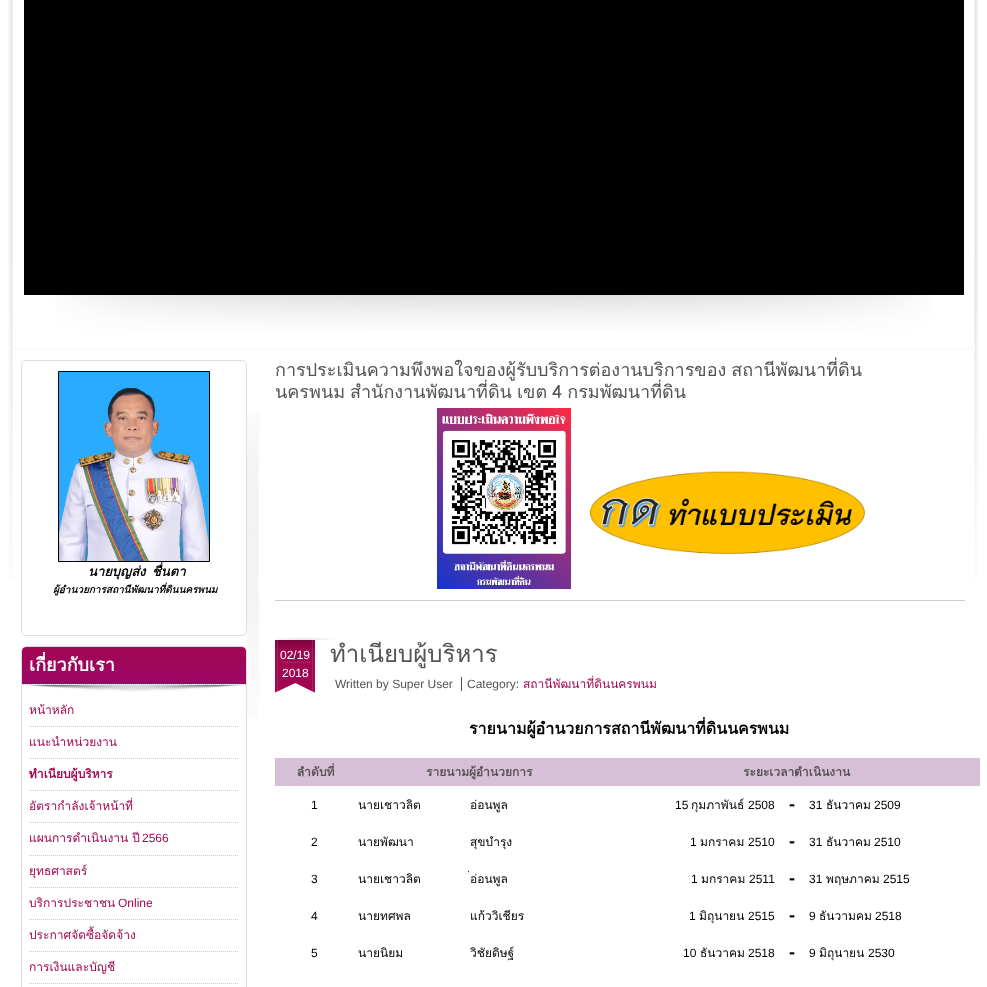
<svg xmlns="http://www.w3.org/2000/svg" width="987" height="987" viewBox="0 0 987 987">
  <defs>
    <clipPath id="clip1"><path d="M29 759h210v31H29z"/></clipPath>
    <clipPath id="clip2"><path d="M29 791h210v31H29z"/></clipPath>
    <clipPath id="clip3"><path d="M29 856h210v31H29z"/></clipPath>
  </defs>
  <rect width="100%" height="100%" fill="#fff"/>
  <image x="8" y="0" width="971" height="579" href="img/1.png"/>
  <image x="55" y="295" width="877" height="36" href="img/2.png"/>
  <path d="M13 347h962v3H13z" fill="#fafafa"/>
  <path d="M24 0h940v295H24z" fill="#000"/>
  <image x="247" y="413" width="13" height="305" href="img/3.png"/>
  <rect x="21.5" y="360.5" width="225" height="275" rx="4.5" fill="none" stroke="#dcdcdc"/>
  <path d="M58.5 371.5h151v190H58.5z" fill="none" stroke="#000"/>
  <image x="59" y="372" width="150" height="189" href="img/4.png"/>
  <rect x="21.5" y="646.5" width="225" height="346" rx="4.5" fill="none" stroke="#dcdcdc"/>
  <image x="24" y="685" width="220" height="7" href="img/5.png"/>
  <image x="22" y="647" width="224" height="38" href="img/6.png"/>
  <path d="M29 726.5H239" fill="none" stroke="#ccc" stroke-dasharray="1 1"/>
  <path d="M29 758.5H239" fill="none" stroke="#ccc" stroke-dasharray="1 1"/>
  <path d="M29 790.5H239" fill="none" stroke="#ccc" stroke-dasharray="1 1"/>
  <path d="M29 822.5H239" fill="none" stroke="#ccc" stroke-dasharray="1 1"/>
  <path d="M29 855.5H239" fill="none" stroke="#ccc" stroke-dasharray="1 1"/>
  <path d="M29 887.5H239" fill="none" stroke="#ccc" stroke-dasharray="1 1"/>
  <path d="M29 919.5H239" fill="none" stroke="#ccc" stroke-dasharray="1 1"/>
  <path d="M29 951.5H239" fill="none" stroke="#ccc" stroke-dasharray="1 1"/>
  <path d="M29 983.5H239" fill="none" stroke="#ccc" stroke-dasharray="1 1"/>
  <image x="437" y="408" width="134" height="181" href="img/7.png"/>
  <image x="590" y="471" width="275" height="83" href="img/8.png"/>
  <path d="M275 600h690v1H275z" fill="#ccc"/>
  <image x="275" y="637" width="61" height="56" href="img/9.png"/>
  <path d="M461 677h1v14H461z" fill="#545454"/>
  <path d="M275 758h705v28H275z" fill="#d8bfd8"/>
  <g font-family="Loma" font-size="13" font-weight="bold" font-style="italic" fill="#000">
    <text x="88" y="576">นายบุญส่ง</text>
    <text x="152" y="576">ชื่นตา</text>
  </g>
  <text x="53" y="593" font-family="Loma" font-size="10" font-weight="bold" font-style="italic" fill="#000">ผู้อำนวยการสถานีพัฒนาที่ดินนครพนม</text>
  <text x="29" y="671" font-family="Loma" font-size="18" font-weight="bold" fill="#fff">เกี่ยวกับเรา</text>
  <g font-family="Loma" font-size="12" fill="#a10651">
    <text x="29" y="714">หน้าหลัก</text>
    <text x="29" y="746">แนะนำหน่วยงาน</text>
  </g>
  <g clip-path="url(#clip1)">
    <text x="29" y="778" font-family="Loma" font-size="12" font-weight="bold" fill="#a10651">ทำเนียบผู้บริหาร</text>
  </g>
  <g clip-path="url(#clip2)">
    <text x="29" y="810" font-family="Loma" font-size="12" fill="#a10651">อัตรากำลังเจ้าหน้าที่</text>
  </g>
  <text x="29" y="842" font-family="Loma" font-size="12" fill="#a10651">แผนการดำเนินงาน ปี</text>
  <text x="142" y="842" font-family="Liberation Sans" font-size="12" fill="#a10651">2566</text>
  <g clip-path="url(#clip3)">
    <text x="29" y="875" font-family="Loma" font-size="12" fill="#a10651">ยุทธศาสตร์</text>
  </g>
  <text x="29" y="907" font-family="Loma" font-size="12" fill="#a10651">บริการประชาชน</text>
  <text x="118" y="907" font-family="Liberation Sans" font-size="12" fill="#a10651">Online</text>
  <g font-family="Loma" font-size="12" fill="#a10651">
    <text x="29" y="939">ประกาศจัดซื้อจัดจ้าง</text>
    <text x="29" y="971">การเงินและบัญชี</text>
  </g>
  <g font-family="Loma" font-size="18" fill="#545454">
    <text x="275" y="376" word-spacing="-1">การประเมินความพึงพอใจของผู้รับบริการต่องานบริการของ สถานีพัฒนาที่ดิน</text>
    <text x="275" y="398">นครพนม</text>
    <text x="350" y="398" word-spacing="-1">สำนักงานพัฒนาที่ดิน เขต 4 กรมพัฒนาที่ดิน</text>
  </g>
  <g font-family="Liberation Sans" font-size="12" fill="#fff">
    <text x="280" y="659">02/19</text>
    <text x="282" y="677">2018</text>
  </g>
  <text x="330" y="662" font-family="Loma" font-size="24" fill="#545454">ทำเนียบผู้บริหาร</text>
  <g font-family="Liberation Sans" font-size="12" fill="#545454">
    <text x="335" y="688">Written by Super User</text>
    <text x="467" y="688">Category:</text>
  </g>
  <text x="523" y="688" font-family="Loma" font-size="12" fill="#a10651">สถานีพัฒนาที่ดินนครพนม</text>
  <text x="469" y="734" font-family="Loma" font-size="16" font-weight="bold" fill="#000">รายนามผู้อำนวยการสถานีพัฒนาที่ดินนครพนม</text>
  <g font-family="Loma" font-size="12" font-weight="bold" fill="#545454">
    <text x="297" y="776">ลำดับที่</text>
    <text x="426" y="776">รายนามผู้อำนวยการ</text>
    <text x="743" y="776">ระยะเวลาดำเนินงาน</text>
  </g>
  <text x="311" y="809" font-family="Liberation Sans" font-size="12" fill="#000">1</text>
  <g font-family="Loma" font-size="12" fill="#000">
    <text x="358" y="809">นายเชาวลิต</text>
    <text x="470" y="809">อ่อนพูล</text>
  </g>
  <text x="675" y="809" font-family="Liberation Sans" font-size="12" fill="#000">15</text>
  <text x="691" y="809" font-family="Loma" font-size="12" fill="#000">กุมภาพันธ์</text>
  <text x="748" y="809" font-family="Liberation Sans" font-size="12" fill="#000">2508</text>
  <text x="789" y="810" font-family="Liberation Sans" font-size="18" font-weight="bold" fill="#000">-</text>
  <text x="809" y="809" font-family="Liberation Sans" font-size="12" fill="#000">31</text>
  <text x="826" y="809" font-family="Loma" font-size="12" fill="#000">ธันวาคม</text>
  <g font-family="Liberation Sans" font-size="12" fill="#000">
    <text x="874" y="809">2509</text>
    <text x="311" y="846">2</text>
  </g>
  <g font-family="Loma" font-size="12" fill="#000">
    <text x="358" y="846">นายพัฒนา</text>
    <text x="470" y="846">สุขบำรุง</text>
  </g>
  <text x="690" y="846" font-family="Liberation Sans" font-size="12" fill="#000">1</text>
  <text x="700" y="846" font-family="Loma" font-size="12" fill="#000">มกราคม</text>
  <text x="748" y="846" font-family="Liberation Sans" font-size="12" fill="#000">2510</text>
  <text x="789" y="847" font-family="Liberation Sans" font-size="18" font-weight="bold" fill="#000">-</text>
  <text x="809" y="846" font-family="Liberation Sans" font-size="12" fill="#000">31</text>
  <text x="826" y="846" font-family="Loma" font-size="12" fill="#000">ธันวาคม</text>
  <g font-family="Liberation Sans" font-size="12" fill="#000">
    <text x="874" y="846">2510</text>
    <text x="311" y="883">3</text>
  </g>
  <g font-family="Loma" font-size="12" fill="#000">
    <text x="358" y="883">นายเชาวลิต</text>
    <text x="470" y="883">่อ่อนพูล</text>
  </g>
  <text x="691" y="883" font-family="Liberation Sans" font-size="12" fill="#000">1</text>
  <text x="701" y="883" font-family="Loma" font-size="12" fill="#000">มกราคม</text>
  <text x="749" y="883" font-family="Liberation Sans" font-size="12" fill="#000">2511</text>
  <text x="789" y="884" font-family="Liberation Sans" font-size="18" font-weight="bold" fill="#000">-</text>
  <text x="809" y="883" font-family="Liberation Sans" font-size="12" fill="#000">31</text>
  <text x="826" y="883" font-family="Loma" font-size="12" fill="#000">พฤษภาคม</text>
  <g font-family="Liberation Sans" font-size="12" fill="#000">
    <text x="883" y="883">2515</text>
    <text x="311" y="920">4</text>
  </g>
  <g font-family="Loma" font-size="12" fill="#000">
    <text x="358" y="920">นายทศพล</text>
    <text x="470" y="920">แก้ววิเชียร</text>
  </g>
  <text x="689" y="920" font-family="Liberation Sans" font-size="12" fill="#000">1</text>
  <text x="699" y="920" font-family="Loma" font-size="12" fill="#000">มิถุนายน</text>
  <text x="748" y="920" font-family="Liberation Sans" font-size="12" fill="#000">2515</text>
  <text x="789" y="921" font-family="Liberation Sans" font-size="18" font-weight="bold" fill="#000">-</text>
  <text x="809" y="920" font-family="Liberation Sans" font-size="12" fill="#000">9</text>
  <text x="819" y="920" font-family="Loma" font-size="12" fill="#000">ธันวามคม</text>
  <g font-family="Liberation Sans" font-size="12" fill="#000">
    <text x="875" y="920">2518</text>
    <text x="311" y="957">5</text>
  </g>
  <g font-family="Loma" font-size="12" fill="#000">
    <text x="358" y="957">นายนิยม</text>
    <text x="470" y="957">วิชัยดิษฐ์</text>
  </g>
  <text x="683" y="957" font-family="Liberation Sans" font-size="12" fill="#000">10</text>
  <text x="700" y="957" font-family="Loma" font-size="12" fill="#000">ธันวาคม</text>
  <text x="748" y="957" font-family="Liberation Sans" font-size="12" fill="#000">2518</text>
  <text x="789" y="958" font-family="Liberation Sans" font-size="18" font-weight="bold" fill="#000">-</text>
  <text x="809" y="957" font-family="Liberation Sans" font-size="12" fill="#000">9</text>
  <text x="819" y="957" font-family="Loma" font-size="12" fill="#000">มิถุนายน</text>
  <text x="868" y="957" font-family="Liberation Sans" font-size="12" fill="#000">2530</text>
</svg>
